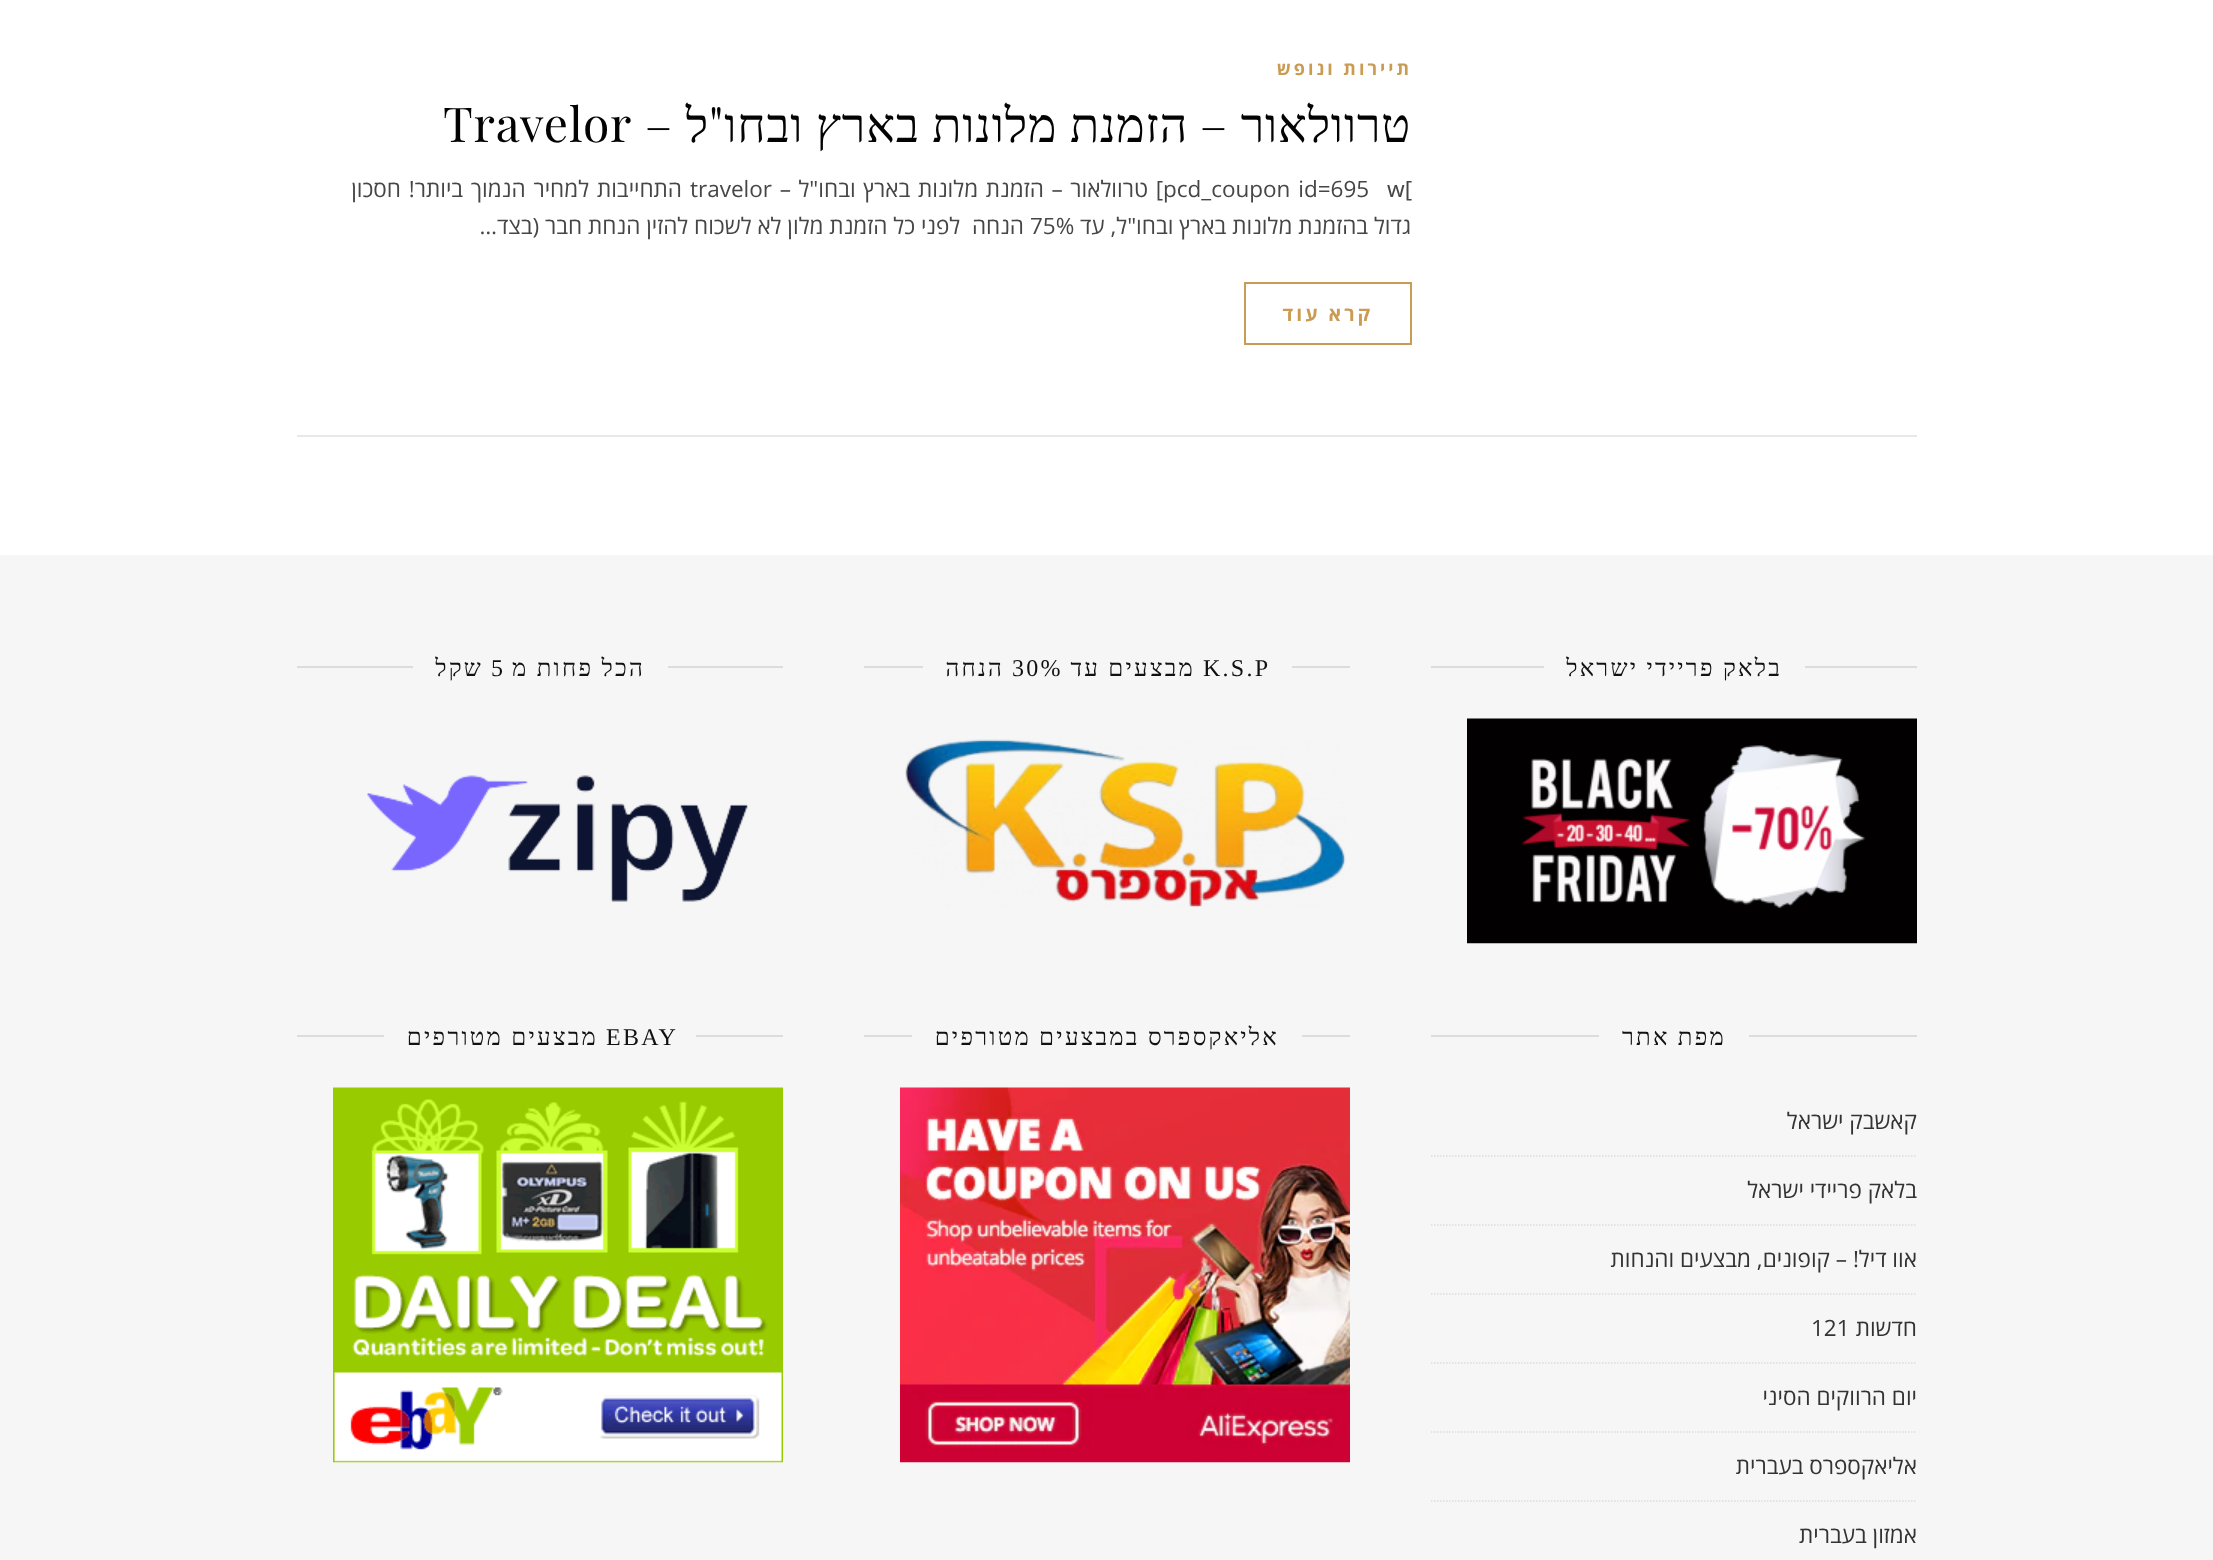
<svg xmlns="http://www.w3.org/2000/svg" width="2213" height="1560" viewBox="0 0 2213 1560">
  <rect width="100%" height="100%" fill="#fff"/>
  <path d="M297 435h1620v2H297z" fill="#e8e8e8"/>
  <path d="M1245 283h166v61H1245z" fill="none" stroke="#ca9b52" stroke-width="2"/>
  <path d="M0 555h2213v1005H0z" fill="#f6f6f6"/>
  <path d="M1805 666h112v2H1805z" fill="#e0dbdb"/>
  <path d="M1431 666h113v2H1431z" fill="#e0dbdb"/>
  <image x="1467" y="718" width="450" height="226" href="img/1.png"/>
  <path d="M1292 666h58v2H1292z" fill="#e0dbdb"/>
  <path d="M864 666h59v2H864z" fill="#e0dbdb"/>
  <image x="905" y="739" width="441" height="168" href="img/2.png"/>
  <path d="M668 666h115v2H668z" fill="#e0dbdb"/>
  <path d="M297 666h116v2H297z" fill="#e0dbdb"/>
  <image x="367" y="775" width="381" height="127" href="img/3.png"/>
  <path d="M1749 1035h168v2H1749z" fill="#e0dbdb"/>
  <path d="M1431 1035h168v2H1431z" fill="#e0dbdb"/>
  <path d="M1431 1156H1917" fill="none" stroke="#e0dbdb" stroke-width="1.5" stroke-dasharray="1.5 1.5"/>
  <path d="M1431 1225H1917" fill="none" stroke="#e0dbdb" stroke-width="1.5" stroke-dasharray="1.5 1.5"/>
  <path d="M1431 1294H1917" fill="none" stroke="#e0dbdb" stroke-width="1.5" stroke-dasharray="1.5 1.5"/>
  <path d="M1431 1363H1917" fill="none" stroke="#e0dbdb" stroke-width="1.5" stroke-dasharray="1.5 1.5"/>
  <path d="M1431 1432H1917" fill="none" stroke="#e0dbdb" stroke-width="1.5" stroke-dasharray="1.5 1.5"/>
  <path d="M1431 1501H1917" fill="none" stroke="#e0dbdb" stroke-width="1.5" stroke-dasharray="1.5 1.5"/>
  <path d="M1302 1035h48v2H1302z" fill="#e0dbdb"/>
  <path d="M864 1035h48v2H864z" fill="#e0dbdb"/>
  <image x="900" y="1087" width="450" height="376" href="img/4.png"/>
  <path d="M696 1035h87v2H696z" fill="#e0dbdb"/>
  <path d="M297 1035h87v2H297z" fill="#e0dbdb"/>
  <image x="333" y="1087" width="450" height="376" href="img/5.png"/>
  <text x="1412" y="75" font-family="Open Sans" font-size="18" font-weight="bold" letter-spacing="3" direction="rtl" fill="#ca9b52">תיירות ונופש</text>
  <g font-family="Liberation Serif" font-size="48" letter-spacing="0.75" direction="rtl" fill="#030303">
    <text x="1411" y="142">טרוולאור</text>
    <text x="1188" y="142">הזמנת מלונות בארץ ובחו</text>
  </g>
  <text x="724" y="142" font-family="Playfair Display" font-size="48" letter-spacing="0.75" direction="rtl" fill="#030303">"</text>
  <text x="709" y="142" font-family="Liberation Serif" font-size="48" letter-spacing="0.75" direction="rtl" fill="#030303">ל</text>
  <text x="443" y="142" font-family="Playfair Display" font-size="48" letter-spacing="0.75" fill="#030303">Travelor</text>
  <g font-family="Playfair Display" font-size="48" letter-spacing="0.75" direction="rtl" fill="#030303">
    <text x="1228" y="142">–</text>
    <text x="673" y="142">–</text>
  </g>
  <text x="1387" y="197" font-family="Noto Sans" font-size="22.5" fill="#464646">w[</text>
  <text x="1163" y="197" word-spacing="2" font-family="Open Sans" font-size="22.5" fill="#464646">pcd_coupon id=695</text>
  <text x="1163" y="197" word-spacing="1.75" font-family="Open Sans" font-size="22.5" direction="rtl" fill="#464646">] טרוולאור – הזמנת מלונות בארץ ובחו"ל –</text>
  <text x="690" y="197" font-family="Open Sans" font-size="22.5" fill="#464646">travelor</text>
  <g font-family="Open Sans" font-size="22.5" direction="rtl" fill="#464646">
    <text x="682" y="197" word-spacing="2">התחייבות למחיר הנמוך ביותר! חסכון</text>
    <text x="1411" y="234">גדול בהזמנת מלונות בארץ ובחו"ל, עד</text>
  </g>
  <text x="1030" y="234" font-family="Open Sans" font-size="22.5" fill="#464646">75%</text>
  <text x="1024" y="234" font-family="Open Sans" font-size="22.5" direction="rtl" fill="#464646" xml:space="preserve">הנחה  לפני כל הזמנת מלון לא לשכוח להזין הנחת חבר (בצד…</text>
  <text x="1373" y="321" font-family="Open Sans" font-size="19.5" font-weight="bold" letter-spacing="3" direction="rtl" fill="#ca9b52">קרא עוד</text>
  <text x="1782" y="676" font-family="Liberation Serif" font-size="24" letter-spacing="2.25" direction="rtl" fill="#111">בלאק פריידי ישראל</text>
  <text x="1203" y="676" font-family="Liberation Serif" font-size="24" letter-spacing="2.25" fill="#111">K.S.P</text>
  <text x="1195" y="676" font-family="Liberation Serif" font-size="24" letter-spacing="2.25" direction="rtl" fill="#111">מבצעים עד</text>
  <text x="1012" y="676" font-family="Liberation Serif" font-size="24" letter-spacing="2.25" fill="#111">30%</text>
  <g font-family="Liberation Serif" font-size="24" letter-spacing="2.25" direction="rtl" fill="#111">
    <text x="1004" y="676">הנחה</text>
    <text x="645" y="676">הכל פחות מ</text>
  </g>
  <text x="491" y="676" font-family="Liberation Serif" font-size="24" letter-spacing="2.25" fill="#111">5</text>
  <g font-family="Liberation Serif" font-size="24" letter-spacing="2.25" direction="rtl" fill="#111">
    <text x="483" y="676">שקל</text>
    <text x="1726" y="1045">מפת אתר</text>
  </g>
  <g font-family="Open Sans" font-size="22.5" direction="rtl" fill="#333">
    <text x="1917" y="1129">קאשבק ישראל</text>
    <text x="1917" y="1198">בלאק פריידי ישראל</text>
    <text x="1917" y="1267">אוו דיל! – קופונים, מבצעים והנחות</text>
    <text x="1917" y="1336">חדשות</text>
  </g>
  <text x="1811" y="1336" font-family="Open Sans" font-size="22.5" fill="#333">121</text>
  <g font-family="Open Sans" font-size="22.5" direction="rtl" fill="#333">
    <text x="1917" y="1405">יום הרווקים הסיני</text>
    <text x="1917" y="1474">אליאקספרס בעברית</text>
    <text x="1917" y="1543">אמזון בעברית</text>
  </g>
  <text x="1279" y="1045" font-family="Liberation Serif" font-size="24" letter-spacing="2.25" direction="rtl" fill="#111">אליאקספרס במבצעים מטורפים</text>
  <text x="606" y="1045" font-family="Liberation Serif" font-size="24" letter-spacing="2.25" fill="#111">EBAY</text>
  <text x="598" y="1045" font-family="Liberation Serif" font-size="24" letter-spacing="2.25" direction="rtl" fill="#111">מבצעים מטורפים</text>
</svg>
